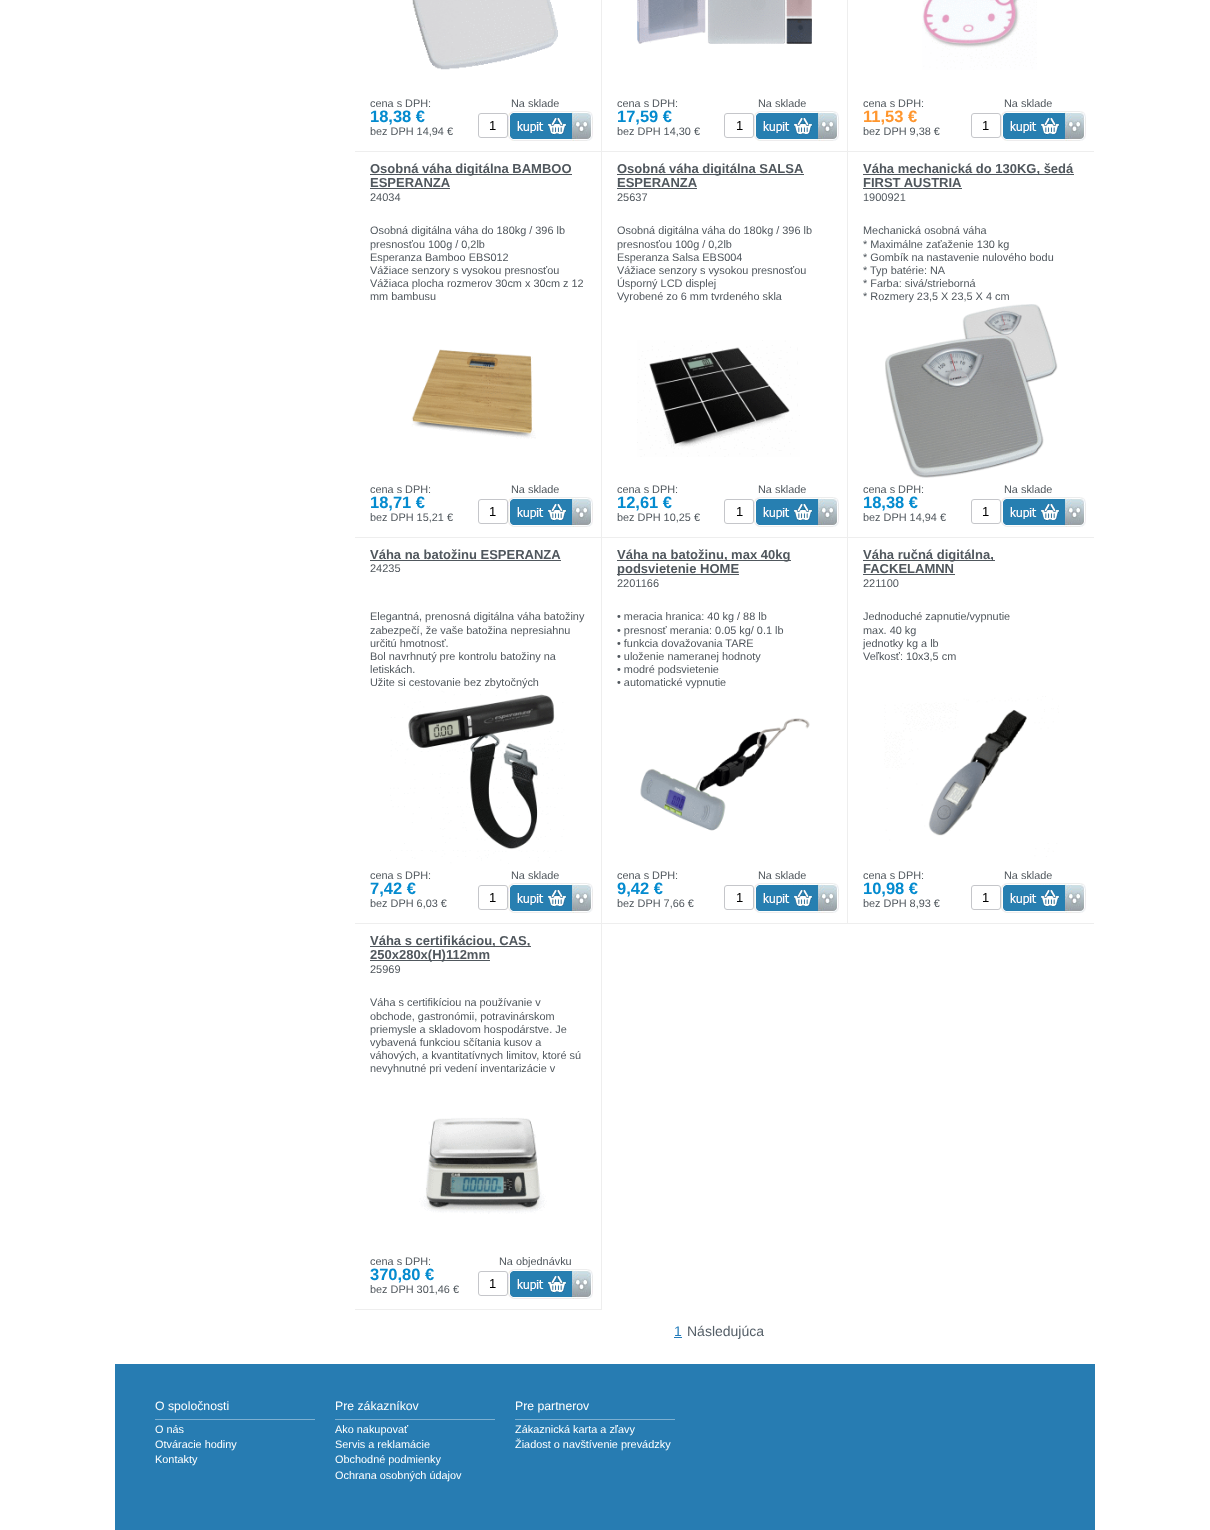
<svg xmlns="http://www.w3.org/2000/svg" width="1210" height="1530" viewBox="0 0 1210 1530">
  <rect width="100%" height="100%" fill="#fff"/>
  <path d="M601 0h1v152H601z" fill="#eee"/>
  <path d="M355 151h247v1H355z" fill="#eee"/>
  <image x="412" y="0" width="146" height="70" href="img/1.png"/>
  <rect x="478.5" y="113.5" width="29" height="24" rx="2.5" fill="none" stroke="#c5c6ca"/>
  <image x="508" y="111" width="85" height="30" href="img/2.png"/>
  <path d="M847 0h1v152H847z" fill="#eee"/>
  <path d="M602 151h492v1H602z" fill="#eee"/>
  <image x="637" y="0" width="175" height="44" href="img/3.png"/>
  <rect x="724.5" y="113.5" width="29" height="24" rx="2.5" fill="none" stroke="#c5c6ca"/>
  <image x="754" y="111" width="85" height="30" href="img/4.png"/>
  <image x="922" y="0" width="115" height="70" href="img/5.png"/>
  <rect x="971.5" y="113.5" width="29" height="24" rx="2.5" fill="none" stroke="#c5c6ca"/>
  <image x="1001" y="111" width="85" height="30" href="img/4.png"/>
  <path d="M601 151h1v387H601z" fill="#eee"/>
  <path d="M355 537h247v1H355z" fill="#eee"/>
  <path d="M370 174h202v1H370z" fill="#50575d"/>
  <path d="M370 188h80v1H370z" fill="#50575d"/>
  <image x="411" y="349" width="125" height="90" href="img/6.png"/>
  <rect x="478.5" y="499.5" width="29" height="24" rx="2.5" fill="none" stroke="#c5c6ca"/>
  <image x="508" y="497" width="85" height="30" href="img/2.png"/>
  <path d="M847 151h1v387H847z" fill="#eee"/>
  <path d="M602 537h492v1H602z" fill="#eee"/>
  <path d="M617 174h187v1H617z" fill="#50575d"/>
  <path d="M617 188h80v1H617z" fill="#50575d"/>
  <image x="637" y="340" width="163" height="117" href="img/7.png"/>
  <rect x="724.5" y="499.5" width="29" height="24" rx="2.5" fill="none" stroke="#c5c6ca"/>
  <image x="754" y="497" width="85" height="30" href="img/4.png"/>
  <path d="M863 174h211v1H863z" fill="#50575d"/>
  <path d="M863 188h99v1H863z" fill="#50575d"/>
  <image x="885" y="304" width="173" height="174" href="img/8.png"/>
  <rect x="971.5" y="499.5" width="29" height="24" rx="2.5" fill="none" stroke="#c5c6ca"/>
  <image x="1001" y="497" width="85" height="30" href="img/4.png"/>
  <path d="M601 537h1v387H601z" fill="#eee"/>
  <path d="M355 923h247v1H355z" fill="#eee"/>
  <path d="M370 560h191v1H370z" fill="#50575d"/>
  <image x="390" y="689" width="175" height="175" href="img/9.png"/>
  <rect x="478.5" y="885.5" width="29" height="24" rx="2.5" fill="none" stroke="#c5c6ca"/>
  <image x="508" y="883" width="85" height="30" href="img/2.png"/>
  <path d="M847 537h1v387H847z" fill="#eee"/>
  <path d="M602 923h492v1H602z" fill="#eee"/>
  <path d="M617 560h174v1H617z" fill="#50575d"/>
  <path d="M617 574h122v1H617z" fill="#50575d"/>
  <image x="640" y="718" width="170" height="113" href="img/10.png"/>
  <rect x="724.5" y="885.5" width="29" height="24" rx="2.5" fill="none" stroke="#c5c6ca"/>
  <image x="754" y="883" width="85" height="30" href="img/4.png"/>
  <path d="M863 560h132v1H863z" fill="#50575d"/>
  <path d="M863 574h92v1H863z" fill="#50575d"/>
  <image x="884" y="696" width="175" height="161" href="img/11.png"/>
  <rect x="971.5" y="885.5" width="29" height="24" rx="2.5" fill="none" stroke="#c5c6ca"/>
  <image x="1001" y="883" width="85" height="30" href="img/4.png"/>
  <path d="M601 923h1v387H601z" fill="#eee"/>
  <path d="M355 1309h247v1H355z" fill="#eee"/>
  <path d="M370 946h161v1H370z" fill="#50575d"/>
  <path d="M370 960h120v1H370z" fill="#50575d"/>
  <image x="419" y="1117" width="128" height="97" href="img/12.png"/>
  <rect x="478.5" y="1271.5" width="29" height="24" rx="2.5" fill="none" stroke="#c5c6ca"/>
  <image x="508" y="1269" width="85" height="30" href="img/2.png"/>
  <path d="M674 1337h8v1H674z" fill="#237bba"/>
  <path d="M115 1364h980v166H115z" fill="#277cb2"/>
  <path d="M155 1419h160v1H155z" fill="#7dafd0"/>
  <path d="M335 1419h160v1H335z" fill="#7dafd0"/>
  <path d="M515 1419h160v1H515z" fill="#7dafd0"/>
  <text x="370" y="107" font-family="Liberation Sans" font-size="10.9" fill="#50575d">cena s DPH:</text>
  <text x="370" y="122" font-family="Liberation Sans" font-size="16.5" font-weight="bold" fill="#048bcf">18,38 €</text>
  <g font-family="Liberation Sans" font-size="10.9" fill="#50575d">
    <text x="370" y="135">bez DPH 14,94 €</text>
    <text x="511" y="107">Na sklade</text>
  </g>
  <text x="489" y="130" font-family="Liberation Sans" font-size="13" fill="#000">1</text>
  <text x="617" y="107" font-family="Liberation Sans" font-size="10.9" fill="#50575d">cena s DPH:</text>
  <text x="617" y="122" font-family="Liberation Sans" font-size="16.5" font-weight="bold" fill="#048bcf">17,59 €</text>
  <g font-family="Liberation Sans" font-size="10.9" fill="#50575d">
    <text x="617" y="135">bez DPH 14,30 €</text>
    <text x="758" y="107">Na sklade</text>
  </g>
  <text x="736" y="130" font-family="Liberation Sans" font-size="13" fill="#000">1</text>
  <text x="863" y="107" font-family="Liberation Sans" font-size="10.9" fill="#50575d">cena s DPH:</text>
  <text x="863" y="122" font-family="Liberation Sans" font-size="16.5" font-weight="bold" fill="#ff962e">11,53 €</text>
  <g font-family="Liberation Sans" font-size="10.9" fill="#50575d">
    <text x="863" y="135">bez DPH 9,38 €</text>
    <text x="1004" y="107">Na sklade</text>
  </g>
  <text x="982" y="130" font-family="Liberation Sans" font-size="13" fill="#000">1</text>
  <g font-family="Liberation Sans" font-size="13" font-weight="bold" fill="#50575d">
    <text x="370" y="173">Osobná váha digitálna BAMBOO</text>
    <text x="370" y="187">ESPERANZA</text>
  </g>
  <text x="370" y="201" font-family="Liberation Sans" font-size="11" fill="#50575d">24034</text>
  <g font-family="Liberation Sans" font-size="10.9" fill="#50575d">
    <text x="370" y="234">Osobná digitálna váha do 180kg / 396 lb</text>
    <text x="370" y="248">presnosťou 100g / 0,2lb</text>
    <text x="370" y="261">Esperanza Bamboo EBS012</text>
    <text x="370" y="274">Vážiace senzory s vysokou presnosťou</text>
    <text x="370" y="287">Vážiaca plocha rozmerov 30cm x 30cm z 12</text>
    <text x="370" y="300">mm bambusu</text>
    <text x="370" y="493">cena s DPH:</text>
  </g>
  <text x="370" y="508" font-family="Liberation Sans" font-size="16.5" font-weight="bold" fill="#048bcf">18,71 €</text>
  <g font-family="Liberation Sans" font-size="10.9" fill="#50575d">
    <text x="370" y="521">bez DPH 15,21 €</text>
    <text x="511" y="493">Na sklade</text>
  </g>
  <text x="489" y="516" font-family="Liberation Sans" font-size="13" fill="#000">1</text>
  <g font-family="Liberation Sans" font-size="13" font-weight="bold" fill="#50575d">
    <text x="617" y="173">Osobná váha digitálna SALSA</text>
    <text x="617" y="187">ESPERANZA</text>
  </g>
  <text x="617" y="201" font-family="Liberation Sans" font-size="11" fill="#50575d">25637</text>
  <g font-family="Liberation Sans" font-size="10.9" fill="#50575d">
    <text x="617" y="234">Osobná digitálna váha do 180kg / 396 lb</text>
    <text x="617" y="248">presnosťou 100g / 0,2lb</text>
    <text x="617" y="261">Esperanza Salsa EBS004</text>
    <text x="617" y="274">Vážiace senzory s vysokou presnosťou</text>
    <text x="617" y="287">Úsporný LCD displej</text>
    <text x="617" y="300">Vyrobené zo 6 mm tvrdeného skla</text>
    <text x="617" y="493">cena s DPH:</text>
  </g>
  <text x="617" y="508" font-family="Liberation Sans" font-size="16.5" font-weight="bold" fill="#048bcf">12,61 €</text>
  <g font-family="Liberation Sans" font-size="10.9" fill="#50575d">
    <text x="617" y="521">bez DPH 10,25 €</text>
    <text x="758" y="493">Na sklade</text>
  </g>
  <text x="736" y="516" font-family="Liberation Sans" font-size="13" fill="#000">1</text>
  <g font-family="Liberation Sans" font-size="13" font-weight="bold" fill="#50575d">
    <text x="863" y="173">Váha mechanická do 130KG, šedá</text>
    <text x="863" y="187">FIRST AUSTRIA</text>
  </g>
  <text x="863" y="201" font-family="Liberation Sans" font-size="11" fill="#50575d">1900921</text>
  <g font-family="Liberation Sans" font-size="10.9" fill="#50575d">
    <text x="863" y="234">Mechanická osobná váha</text>
    <text x="863" y="248">* Maximálne zaťaženie 130 kg</text>
    <text x="863" y="261">* Gombík na nastavenie nulového bodu</text>
    <text x="863" y="274">* Typ batérie: NA</text>
    <text x="863" y="287">* Farba: sivá/strieborná</text>
    <text x="863" y="300">* Rozmery 23,5 X 23,5 X 4 cm</text>
    <text x="863" y="493">cena s DPH:</text>
  </g>
  <text x="863" y="508" font-family="Liberation Sans" font-size="16.5" font-weight="bold" fill="#048bcf">18,38 €</text>
  <g font-family="Liberation Sans" font-size="10.9" fill="#50575d">
    <text x="863" y="521">bez DPH 14,94 €</text>
    <text x="1004" y="493">Na sklade</text>
  </g>
  <text x="982" y="516" font-family="Liberation Sans" font-size="13" fill="#000">1</text>
  <text x="370" y="559" font-family="Liberation Sans" font-size="13" font-weight="bold" fill="#50575d">Váha na batožinu ESPERANZA</text>
  <text x="370" y="572" font-family="Liberation Sans" font-size="11" fill="#50575d">24235</text>
  <g font-family="Liberation Sans" font-size="10.9" fill="#50575d">
    <text x="370" y="620">Elegantná, prenosná digitálna váha batožiny</text>
    <text x="370" y="634">zabezpečí, že vaše batožina nepresiahnu</text>
    <text x="370" y="647">určitú hmotnosť.</text>
    <text x="370" y="660">Bol navrhnutý pre kontrolu batožiny na</text>
    <text x="370" y="673">letiskách.</text>
    <text x="370" y="686">Užite si cestovanie bez zbytočných</text>
    <text x="370" y="879">cena s DPH:</text>
  </g>
  <text x="370" y="894" font-family="Liberation Sans" font-size="16.5" font-weight="bold" fill="#048bcf">7,42 €</text>
  <g font-family="Liberation Sans" font-size="10.9" fill="#50575d">
    <text x="370" y="907">bez DPH 6,03 €</text>
    <text x="511" y="879">Na sklade</text>
  </g>
  <text x="489" y="902" font-family="Liberation Sans" font-size="13" fill="#000">1</text>
  <g font-family="Liberation Sans" font-size="13" font-weight="bold" fill="#50575d">
    <text x="617" y="559">Váha na batožinu, max 40kg</text>
    <text x="617" y="573">podsvietenie HOME</text>
  </g>
  <text x="617" y="587" font-family="Liberation Sans" font-size="11" fill="#50575d">2201166</text>
  <g font-family="Liberation Sans" font-size="10.9" fill="#50575d">
    <text x="617" y="620">• meracia hranica: 40 kg / 88 lb</text>
    <text x="617" y="634">• presnosť merania: 0.05 kg/ 0.1 lb</text>
    <text x="617" y="647">• funkcia dovažovania TARE</text>
    <text x="617" y="660">• uloženie nameranej hodnoty</text>
    <text x="617" y="673">• modré podsvietenie</text>
    <text x="617" y="686">• automatické vypnutie</text>
    <text x="617" y="879">cena s DPH:</text>
  </g>
  <text x="617" y="894" font-family="Liberation Sans" font-size="16.5" font-weight="bold" fill="#048bcf">9,42 €</text>
  <g font-family="Liberation Sans" font-size="10.9" fill="#50575d">
    <text x="617" y="907">bez DPH 7,66 €</text>
    <text x="758" y="879">Na sklade</text>
  </g>
  <text x="736" y="902" font-family="Liberation Sans" font-size="13" fill="#000">1</text>
  <g font-family="Liberation Sans" font-size="13" font-weight="bold" fill="#50575d">
    <text x="863" y="559">Váha ručná digitálna,</text>
    <text x="863" y="573">FACKELAMNN</text>
  </g>
  <text x="863" y="587" font-family="Liberation Sans" font-size="11" fill="#50575d">221100</text>
  <g font-family="Liberation Sans" font-size="10.9" fill="#50575d">
    <text x="863" y="620">Jednoduché zapnutie/vypnutie</text>
    <text x="863" y="634">max. 40 kg</text>
    <text x="863" y="647">jednotky kg a lb</text>
    <text x="863" y="660">Veľkosť: 10x3,5 cm</text>
    <text x="863" y="879">cena s DPH:</text>
  </g>
  <text x="863" y="894" font-family="Liberation Sans" font-size="16.5" font-weight="bold" fill="#048bcf">10,98 €</text>
  <g font-family="Liberation Sans" font-size="10.9" fill="#50575d">
    <text x="863" y="907">bez DPH 8,93 €</text>
    <text x="1004" y="879">Na sklade</text>
  </g>
  <text x="982" y="902" font-family="Liberation Sans" font-size="13" fill="#000">1</text>
  <g font-family="Liberation Sans" font-size="13" font-weight="bold" fill="#50575d">
    <text x="370" y="945">Váha s certifikáciou, CAS,</text>
    <text x="370" y="959">250x280x(H)112mm</text>
  </g>
  <text x="370" y="973" font-family="Liberation Sans" font-size="11" fill="#50575d">25969</text>
  <g font-family="Liberation Sans" font-size="10.9" fill="#50575d">
    <text x="370" y="1006">Váha s certifikíciou na používanie v</text>
    <text x="370" y="1020">obchode, gastronómii, potravinárskom</text>
    <text x="370" y="1033">priemysle a skladovom hospodárstve. Je</text>
    <text x="370" y="1046">vybavená funkciou sčítania kusov a</text>
    <text x="370" y="1059">váhových, a kvantitatívnych limitov, ktoré sú</text>
    <text x="370" y="1072">nevyhnutné pri vedení inventarizácie v</text>
    <text x="370" y="1265">cena s DPH:</text>
  </g>
  <text x="370" y="1280" font-family="Liberation Sans" font-size="16.5" font-weight="bold" fill="#048bcf">370,80 €</text>
  <g font-family="Liberation Sans" font-size="10.9" fill="#50575d">
    <text x="370" y="1293">bez DPH 301,46 €</text>
    <text x="499" y="1265">Na objednávku</text>
  </g>
  <text x="489" y="1288" font-family="Liberation Sans" font-size="13" fill="#000">1</text>
  <text x="674" y="1336" font-family="Liberation Sans" font-size="14" fill="#237bba">1</text>
  <text x="687" y="1336" font-family="Liberation Sans" font-size="14" fill="#545e67">Následujúca</text>
  <text x="155" y="1410" font-family="Liberation Sans" font-size="12.25" fill="#fff">O spoločnosti</text>
  <g font-family="Liberation Sans" font-size="10.9" fill="#fff">
    <text x="155" y="1433">O nás</text>
    <text x="155" y="1448">Otváracie hodiny</text>
    <text x="155" y="1463">Kontakty</text>
  </g>
  <text x="335" y="1410" font-family="Liberation Sans" font-size="12.25" fill="#fff">Pre zákazníkov</text>
  <g font-family="Liberation Sans" font-size="10.9" fill="#fff">
    <text x="335" y="1433">Ako nakupovať</text>
    <text x="335" y="1448">Servis a reklamácie</text>
    <text x="335" y="1463">Obchodné podmienky</text>
    <text x="335" y="1479">Ochrana osobných údajov</text>
  </g>
  <text x="515" y="1410" font-family="Liberation Sans" font-size="12.25" fill="#fff">Pre partnerov</text>
  <g font-family="Liberation Sans" font-size="10.9" fill="#fff">
    <text x="515" y="1433">Zákaznická karta a zľavy</text>
    <text x="515" y="1448">Žiadost o navštívenie prevádzky</text>
  </g>
</svg>
